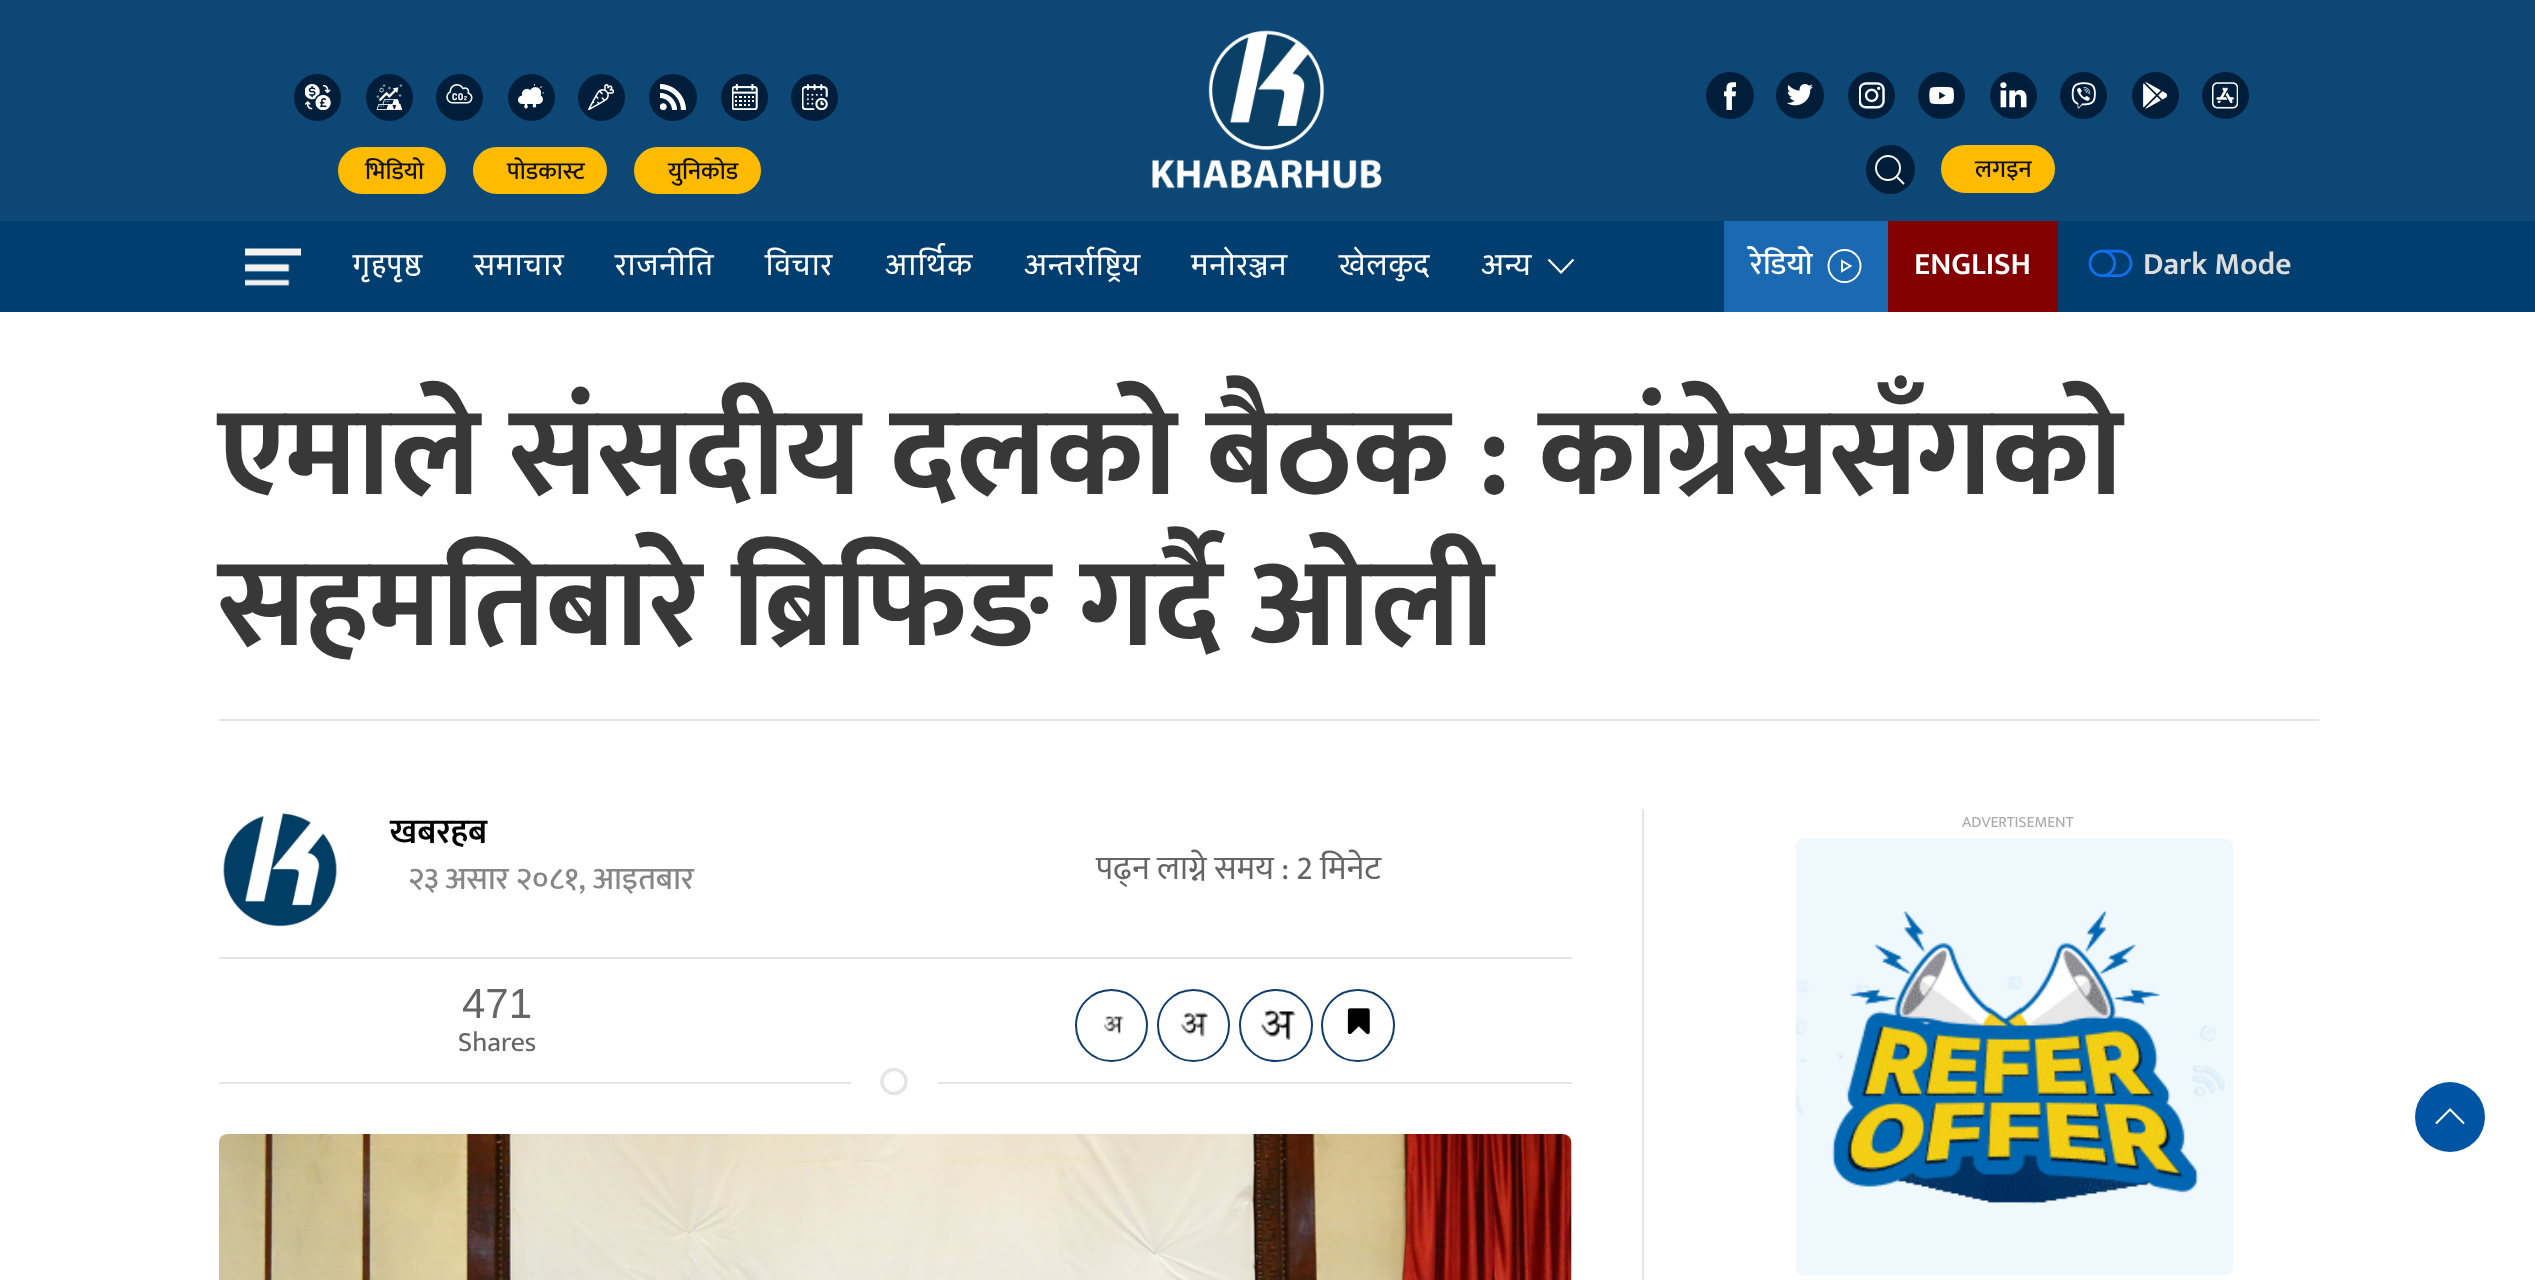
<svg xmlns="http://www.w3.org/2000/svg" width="2535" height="1280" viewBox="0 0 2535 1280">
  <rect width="100%" height="100%" fill="#fff"/>
  <path d="M0 0h2535v221H0z" fill="#0d4776"/>
  <circle cx="317.5" cy="97.5" r="23.5" fill="#001d3a"/>
  <image x="305" y="84" width="26" height="26" href="img/1.png"/>
  <circle cx="389.5" cy="97.5" r="23.5" fill="#001d3a"/>
  <image x="376" y="84" width="27" height="26" href="img/2.png"/>
  <circle cx="459.5" cy="97.5" r="23.5" fill="#001d3a"/>
  <image x="446" y="84" width="27" height="20" href="img/3.png"/>
  <circle cx="531.5" cy="97.5" r="23.5" fill="#001d3a"/>
  <image x="518" y="84" width="26" height="25" href="img/4.png"/>
  <circle cx="601.5" cy="97.5" r="23.5" fill="#001d3a"/>
  <image x="588" y="84" width="26" height="26" href="img/5.png"/>
  <rect x="649" y="74" width="48" height="47" rx="23.5" fill="#001d3a"/>
  <image x="660" y="84" width="26" height="26" href="img/6.png"/>
  <circle cx="744.5" cy="97.5" r="23.5" fill="#001d3a"/>
  <image x="732" y="84" width="26" height="26" href="img/7.png"/>
  <circle cx="814.5" cy="97.5" r="23.5" fill="#001d3a"/>
  <image x="802" y="84" width="26" height="26" href="img/8.png"/>
  <rect x="340" y="149" width="104" height="43" rx="21.5" fill="#fb0" stroke="#fb0" stroke-width="4"/>
  <rect x="475" y="149" width="130" height="43" rx="21.5" fill="#fb0" stroke="#fb0" stroke-width="4"/>
  <rect x="636" y="149" width="123" height="43" rx="21.5" fill="#fb0" stroke="#fb0" stroke-width="4"/>
  <image x="1152" y="30" width="230" height="159" href="img/9.png"/>
  <rect x="1706" y="72" width="48" height="47" rx="23.5" fill="#001d3a"/>
  <image x="1724" y="82" width="12" height="28" href="img/10.png"/>
  <rect x="1776" y="72" width="48" height="47" rx="23.5" fill="#001d3a"/>
  <image x="1787" y="84" width="26" height="22" href="img/11.png"/>
  <circle cx="1871.5" cy="95.5" r="23.5" fill="#001d3a"/>
  <image x="1859" y="82" width="26" height="27" href="img/12.png"/>
  <circle cx="1941.5" cy="95.5" r="23.5" fill="#001d3a"/>
  <image x="1929" y="86" width="25" height="19" href="img/13.png"/>
  <circle cx="2013.5" cy="95.5" r="23.5" fill="#001d3a"/>
  <image x="2000" y="82" width="27" height="26" href="img/14.png"/>
  <circle cx="2083.5" cy="95.5" r="23.5" fill="#001d3a"/>
  <image x="2071" y="82" width="25" height="27" href="img/15.png"/>
  <circle cx="2155.5" cy="95.5" r="23.5" fill="#001d3a"/>
  <image x="2143" y="82" width="25" height="27" href="img/16.png"/>
  <circle cx="2225.5" cy="95.5" r="23.5" fill="#001d3a"/>
  <image x="2212" y="82" width="26" height="27" href="img/17.png"/>
  <circle cx="1890.5" cy="169.5" r="24.5" fill="#001d3a"/>
  <circle cx="1888" cy="168" r="12" fill="none" stroke="#fff" stroke-width="1.9"/>
  <path d="M1897 177L1904 184Z" fill="none" stroke="#fff" stroke-width="1.9"/>
  <rect x="1943" y="147" width="110" height="44" rx="22" fill="#fb0" stroke="#fb0" stroke-width="4"/>
  <path d="M0 221h2535v91H0z" fill="#003e6f"/>
  <image x="245" y="248" width="56" height="38" href="img/18.png"/>
  <path d="M1573.5 259.5L1561 272.5L1548.5 259.5" fill="none" stroke="#fff" stroke-width="2.2"/>
  <path d="M1724 221h164v91H1724z" fill="#1b68b3"/>
  <path d="M1842 261L1850.5 266L1842 271Z" fill="none" stroke="#fff" stroke-width="1.9"/>
  <circle cx="1844.5" cy="266" r="16" fill="none" stroke="#fff" stroke-width="1.9"/>
  <path d="M1888 221h170v91H1888z" fill="#820000"/>
  <image x="2088" y="249" width="45" height="29" href="img/19.png"/>
  <path d="M219 719h2100v2H219z" fill="#e5e5e5"/>
  <image x="223" y="813" width="114" height="114" href="img/20.png"/>
  <path d="M219 957h1353v2H219z" fill="#e5e5e5"/>
  <circle cx="1111.5" cy="1025.5" r="35.5" fill="none" stroke="#113e6f" stroke-width="2"/>
  <image x="1103" y="1016" width="21" height="19" href="img/21.png"/>
  <circle cx="1193.5" cy="1025.5" r="35.5" fill="none" stroke="#113e6f" stroke-width="2"/>
  <image x="1180" y="1012" width="28" height="25" href="img/22.png"/>
  <rect x="1240" y="990" width="72" height="71" rx="35.5" fill="none" stroke="#113e6f" stroke-width="2"/>
  <image x="1261" y="1009" width="35" height="32" href="img/23.png"/>
  <rect x="1322" y="990" width="72" height="71" rx="35.5" fill="none" stroke="#113e6f" stroke-width="2"/>
  <image x="1347" y="1008" width="23" height="26" href="img/24.png"/>
  <circle cx="894" cy="1081.5" r="12" fill="none" stroke="#e5e5e5" stroke-width="3.5"/>
  <path d="M219 1082h632v2H219z" fill="#e5e5e5"/>
  <path d="M938 1082h634v2H938z" fill="#e5e5e5"/>
  <path d="M219 1134h1353v146H219z" fill="#f8f8f8"/>
  <image x="218" y="1134" width="1354" height="146" href="img/25.png"/>
  <path d="M1642 809h2v471H1642z" fill="#e5e5e5"/>
  <image x="1795" y="838" width="438" height="438" href="img/26.png"/>
  <circle cx="2450" cy="1117" r="35" fill="#0054a4"/>
  <path d="M2436 1123.5L2450 1109.5L2464 1123.5" fill="none" stroke="#fff" stroke-width="2.1"/>
  <g font-family="Mukta" font-size="24.5" font-weight="500" fill="#111">
    <text x="365" y="179">भिडियो</text>
    <text x="507" y="179">पोडकास्ट</text>
    <text x="668" y="179">युनिकोड</text>
    <text x="1975" y="177">लगइन</text>
  </g>
  <g font-family="Sarala" font-size="30" fill="#fff">
    <text x="353" y="275">गृहपृष्ठ</text>
    <text x="474" y="275">समाचार</text>
    <text x="615" y="275">राजनीति</text>
    <text x="765" y="275">विचार</text>
    <text x="885" y="275">आर्थिक</text>
    <text x="1024" y="275">अन्तर्राष्ट्रिय</text>
    <text x="1191" y="275">मनोरञ्जन</text>
    <text x="1339" y="275">खेलकुद</text>
    <text x="1481" y="275">अन्य</text>
  </g>
  <text x="1750" y="274" font-family="Mukta" font-size="31.5" font-weight="500" fill="#fff">रेडियो</text>
  <text x="1914" y="274" font-family="Mukta" font-size="31.5" font-weight="600" fill="#fff">ENGLISH</text>
  <text x="2143" y="274" font-family="Mukta" font-size="31.5" font-weight="600" fill="#ddd">Dark Mode</text>
  <g font-family="Mukta" font-size="126" font-weight="bold" fill="#383838">
    <text x="218" y="494">एमाले संसदीय दलको बैठक : कांग्रेससँगको</text>
    <text x="218" y="645">सहमतिबारे ब्रिफिङ गर्दै ओली</text>
  </g>
  <text x="390" y="843" font-family="Mukta" font-size="35" font-weight="600" fill="#000">खबरहब</text>
  <text x="408" y="889" font-family="Mukta" font-size="31.5" font-weight="500" fill="#878787">२३ असार २०८१, आइतबार</text>
  <text x="1096" y="879" font-family="Mukta" font-size="33.5" fill="#656565">पढ्न लाग्ने समय : 2 मिनेट</text>
  <text x="462" y="1018" font-family="Liberation Sans" font-size="42" fill="#656565">471</text>
  <text x="458" y="1051" font-family="Mukta" font-size="28" fill="#656565">Shares</text>
  <text x="1962" y="827" font-family="Mukta" font-size="15.75" fill="#aaa">ADVERTISEMENT</text>
</svg>
